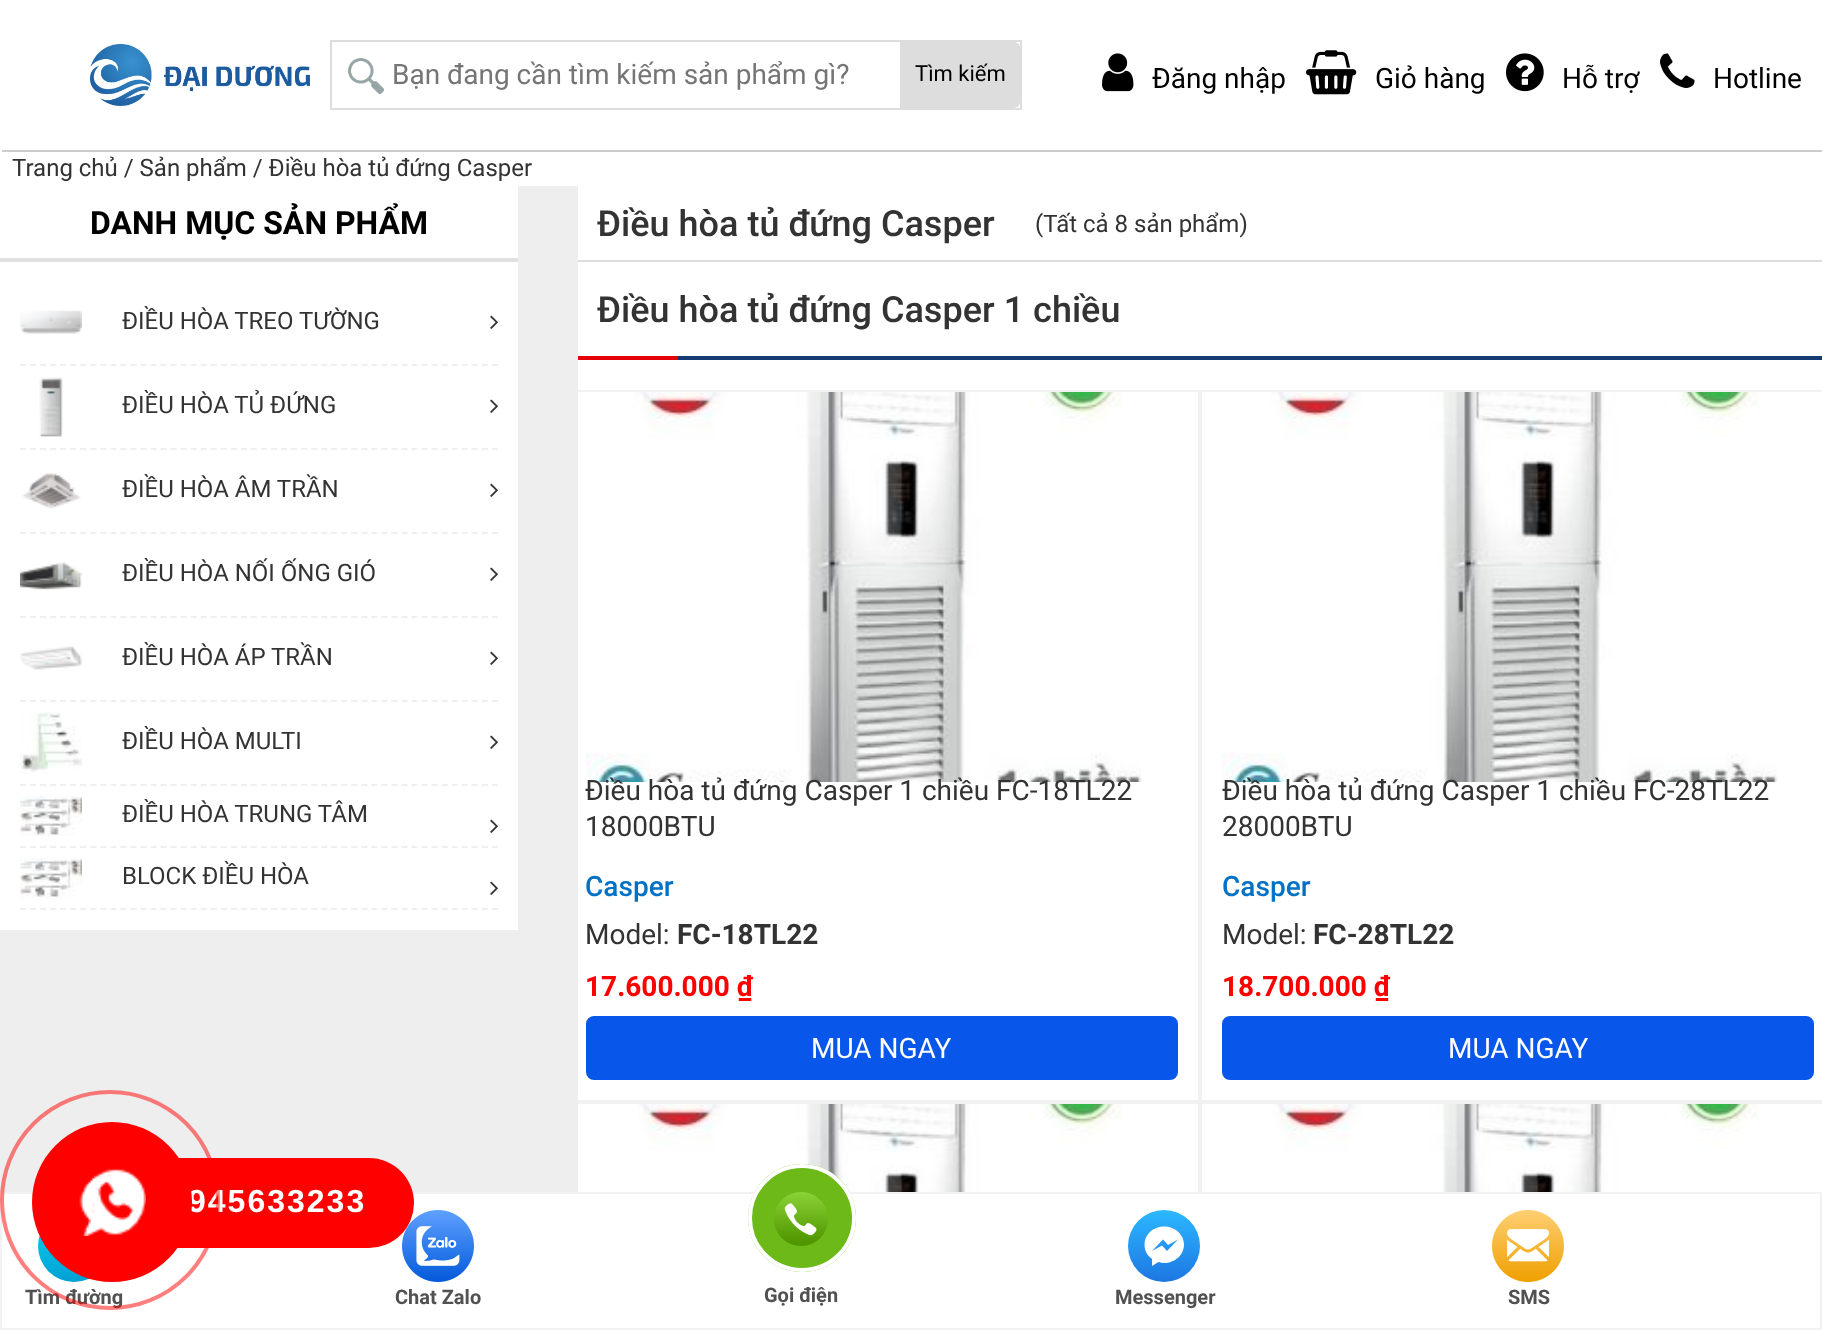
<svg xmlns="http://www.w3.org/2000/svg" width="1822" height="1330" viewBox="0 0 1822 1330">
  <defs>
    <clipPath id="clip1"><path d="M578 186h1244v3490H578z"/></clipPath>
    <linearGradient id="g1" gradientUnits="userSpaceOnUse" x1="74" y1="1210" x2="74" y2="1282"><stop offset="0" stop-color="#07d8f8"/><stop offset="1" stop-color="#00a0d2"/></linearGradient>
    <linearGradient id="g2" gradientUnits="userSpaceOnUse" x1="1163" y1="1281" x2="1163" y2="1211"><stop offset="0" stop-color="#1d77e2"/><stop offset="1" stop-color="#2cb7ff"/></linearGradient>
  </defs>
  <rect width="100%" height="100%" fill="#eee"/>
  <path d="M0 0h1822v186H0z" fill="#fff"/>
  <path d="M2 150V152H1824V2H1822V150Z" fill="#ccc"/>
  <image x="90" y="44" width="220" height="62" href="img/1.png"/>
  <path d="M331 41h690v68H331z" fill="none" stroke="#ddd" stroke-width="2"/>
  <image x="348" y="58" width="36" height="36" href="img/2.png"/>
  <path d="M900 42H1014C1017.5 42 1020 44.5 1020 48V102C1020 105.5 1017.5 108 1014 108H900Z" fill="#ddd"/>
  <image x="1102" y="53" width="32" height="39" href="img/3.png"/>
  <image x="1306" y="50" width="51" height="45" href="img/4.png"/>
  <image x="1506" y="53" width="38" height="39" href="img/5.png"/>
  <image x="1660" y="53" width="35" height="35" href="img/6.png"/>
  <path d="M0 186h518v72H0z" fill="#fff"/>
  <path d="M0 258h518v4H0z" fill="#e1e1e1"/>
  <path d="M0 262h518v668H0z" fill="#fff"/>
  <path d="M20 365H498" fill="none" stroke="#efefef" stroke-width="2" stroke-dasharray="6 4.04"/>
  <image x="20" y="310" width="62" height="24" href="img/7.png"/>
  <image x="490" y="315" width="8" height="14" href="img/8.png"/>
  <path d="M20 449H498" fill="none" stroke="#efefef" stroke-width="2" stroke-dasharray="6 4.04"/>
  <image x="39" y="377" width="24" height="60" href="img/9.png"/>
  <image x="490" y="399" width="8" height="14" href="img/8.png"/>
  <path d="M20 533H498" fill="none" stroke="#efefef" stroke-width="2" stroke-dasharray="6 4.04"/>
  <image x="22" y="473" width="59" height="36" href="img/10.png"/>
  <image x="490" y="483" width="8" height="14" href="img/8.png"/>
  <path d="M20 617H498" fill="none" stroke="#efefef" stroke-width="2" stroke-dasharray="6 4.04"/>
  <image x="20" y="562" width="62" height="28" href="img/11.png"/>
  <image x="490" y="567" width="8" height="14" href="img/8.png"/>
  <path d="M20 701H498" fill="none" stroke="#efefef" stroke-width="2" stroke-dasharray="6 4.04"/>
  <image x="20" y="646" width="62" height="24" href="img/12.png"/>
  <image x="490" y="651" width="8" height="14" href="img/8.png"/>
  <path d="M20 785H498" fill="none" stroke="#efefef" stroke-width="2" stroke-dasharray="6 4.04"/>
  <image x="20" y="712" width="62" height="62" href="img/13.png"/>
  <image x="490" y="735" width="8" height="14" href="img/8.png"/>
  <path d="M20 847H498" fill="none" stroke="#efefef" stroke-width="2" stroke-dasharray="6 4.04"/>
  <image x="20" y="796" width="62" height="40" href="img/14.png"/>
  <image x="490" y="819" width="8" height="14" href="img/8.png"/>
  <path d="M20 909H498" fill="none" stroke="#efefef" stroke-width="2" stroke-dasharray="6 4.04"/>
  <image x="20" y="858" width="62" height="40" href="img/14.png"/>
  <image x="490" y="881" width="8" height="14" href="img/8.png"/>
  <path d="M578 186h1244v1006H578z" fill="#fff"/>
  <path d="M578 260h1244v2H578z" fill="#ddd"/>
  <path d="M678 356h1144v4H678z" fill="#133a72"/>
  <path d="M578 356h100v4H578z" fill="#e20006"/>
  <g clip-path="url(#clip1)">
    <path d="M565 391h634v710H565z" fill="none" stroke="#f1f1f1" stroke-width="2"/>
  </g>
  <image x="586" y="392" width="556" height="390" href="img/15.png"/>
  <rect x="587" y="1017" width="590" height="62" rx="7" fill="#0857ea" stroke="#0857ea" stroke-width="2"/>
  <path d="M1201 391h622v710H1201z" fill="none" stroke="#f1f1f1" stroke-width="2"/>
  <image x="1222" y="392" width="556" height="390" href="img/15.png"/>
  <rect x="1223" y="1017" width="590" height="62" rx="7" fill="#0857ea" stroke="#0857ea" stroke-width="2"/>
  <g clip-path="url(#clip1)">
    <path d="M565 1103h634v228H565z" fill="none" stroke="#f1f1f1" stroke-width="2"/>
  </g>
  <image x="637" y="1104" width="486" height="88" href="img/16.png"/>
  <path d="M1201 1103h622v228H1201z" fill="none" stroke="#f1f1f1" stroke-width="2"/>
  <image x="1273" y="1104" width="486" height="88" href="img/16.png"/>
  <path d="M1 1193h1820v136H1z" fill="#fff" stroke="#f2f2f2" stroke-width="2"/>
  <circle cx="74" cy="1246" r="36" fill="url(#g1)"/>
  <image x="402" y="1210" width="72" height="72" href="img/18.png"/>
  <rect x="84" y="1158" width="330" height="90" rx="45" fill="#f00"/>
  <circle cx="802" cy="1218" r="54" fill="#6cb917"/>
  <image x="774" y="1192" width="54" height="54" href="img/19.png"/>
  <circle cx="802" cy="1218" r="52" fill="none" stroke="#fff" stroke-width="4"/>
  <circle cx="1164" cy="1246" r="36" fill="url(#g2)"/>
  <path d="M1144.5 1244.5C1144.5 1234.5 1153 1226.5 1164 1226.5C1175 1226.5 1184 1234.5 1184 1244.5C1184 1255 1175 1263 1164 1263C1162 1263 1160.5 1262.5 1158.5 1262L1152 1266V1259C1147 1255.5 1144.5 1250.5 1144.5 1244.5ZM1162 1245.5L1167 1251L1178 1239.5L1168 1245L1163 1239.5L1152 1251Z" fill="#fff" fill-rule="evenodd"/>
  <image x="1492" y="1210" width="72" height="72" href="img/20.png"/>
  <text x="392" y="84" font-family="Roboto" font-size="28" fill="#757575">Bạn đang cần tìm kiếm sản phẩm gì?</text>
  <text x="915" y="81" font-family="Roboto" font-size="22" fill="#000">Tìm kiếm</text>
  <g font-family="Roboto" font-size="28" fill="#000">
    <text x="1152" y="88">Đăng nhập</text>
    <text x="1375" y="88">Giỏ hàng</text>
    <text x="1562" y="88">Hỗ trợ</text>
    <text x="1713" y="88">Hotline</text>
  </g>
  <text x="12" y="176" font-family="Roboto" font-size="24" fill="#333">Trang chủ / Sản phẩm / Điều hòa tủ đứng Casper</text>
  <text x="90" y="234" font-family="Roboto" font-size="32" font-weight="bold" fill="#000">DANH MỤC SẢN PHẨM</text>
  <g font-family="Roboto" font-size="24" fill="#333">
    <text x="122" y="329">ĐIỀU HÒA TREO TƯỜNG</text>
    <text x="122" y="413">ĐIỀU HÒA TỦ ĐỨNG</text>
    <text x="122" y="497">ĐIỀU HÒA ÂM TRẦN</text>
    <text x="122" y="581">ĐIỀU HÒA NỐI ỐNG GIÓ</text>
    <text x="122" y="665">ĐIỀU HÒA ÁP TRẦN</text>
    <text x="122" y="749">ĐIỀU HÒA MULTI</text>
    <text x="122" y="822">ĐIỀU HÒA TRUNG TÂM</text>
    <text x="122" y="884">BLOCK ĐIỀU HÒA</text>
  </g>
  <text x="597" y="236" font-family="Roboto" font-size="36" font-weight="500" fill="#333">Điều hòa tủ đứng Casper</text>
  <text x="1035" y="232" font-family="Roboto" font-size="24" fill="#333">(Tất cả 8 sản phẩm)</text>
  <text x="597" y="322" font-family="Roboto" font-size="36" font-weight="500" fill="#333">Điều hòa tủ đứng Casper 1 chiều</text>
  <g font-family="Roboto" font-size="28" fill="#333">
    <text x="585" y="800">Điều hòa tủ đứng Casper 1 chiều FC-18TL22</text>
    <text x="585" y="836">18000BTU</text>
  </g>
  <text x="585" y="896" font-family="Roboto" font-size="28" font-weight="500" fill="#0071c4">Casper</text>
  <text x="585" y="944" font-family="Roboto" font-size="28" fill="#333">Model:</text>
  <text x="677" y="944" font-family="Roboto" font-size="28" font-weight="bold" fill="#333">FC-18TL22</text>
  <text x="585" y="996" font-family="Roboto" font-size="28" font-weight="bold" fill="#f00">17.600.000 ₫</text>
  <text x="811" y="1058" font-family="Roboto" font-size="28" fill="#fff">MUA NGAY</text>
  <g font-family="Roboto" font-size="28" fill="#333">
    <text x="1222" y="800">Điều hòa tủ đứng Casper 1 chiều FC-28TL22</text>
    <text x="1222" y="836">28000BTU</text>
  </g>
  <text x="1222" y="896" font-family="Roboto" font-size="28" font-weight="500" fill="#0071c4">Casper</text>
  <text x="1222" y="944" font-family="Roboto" font-size="28" fill="#333">Model:</text>
  <text x="1313" y="944" font-family="Roboto" font-size="28" font-weight="bold" fill="#333">FC-28TL22</text>
  <text x="1222" y="996" font-family="Roboto" font-size="28" font-weight="bold" fill="#f00">18.700.000 ₫</text>
  <text x="1448" y="1058" font-family="Roboto" font-size="28" fill="#fff">MUA NGAY</text>
  <text x="188" y="1212" font-family="Liberation Sans" font-size="32" font-weight="bold" letter-spacing="2" fill="#fff">945633233</text>
  <text x="25" y="1304" font-family="Roboto" font-size="20" font-weight="bold" fill="#515151">Tìm đường</text>
  <circle cx="110" cy="1200" r="108" fill="none" stroke="#ff000080" stroke-width="4"/>
  <circle cx="112" cy="1202" r="80" fill="#f00"/>
  <image x="79" y="1168" width="67" height="68" href="img/17.png"/>
  <g font-family="Roboto" font-size="20" font-weight="bold" fill="#515151">
    <text x="395" y="1304">Chat Zalo</text>
    <text x="764" y="1302">Gọi điện</text>
    <text x="1115" y="1304">Messenger</text>
    <text x="1508" y="1304">SMS</text>
  </g>
</svg>
